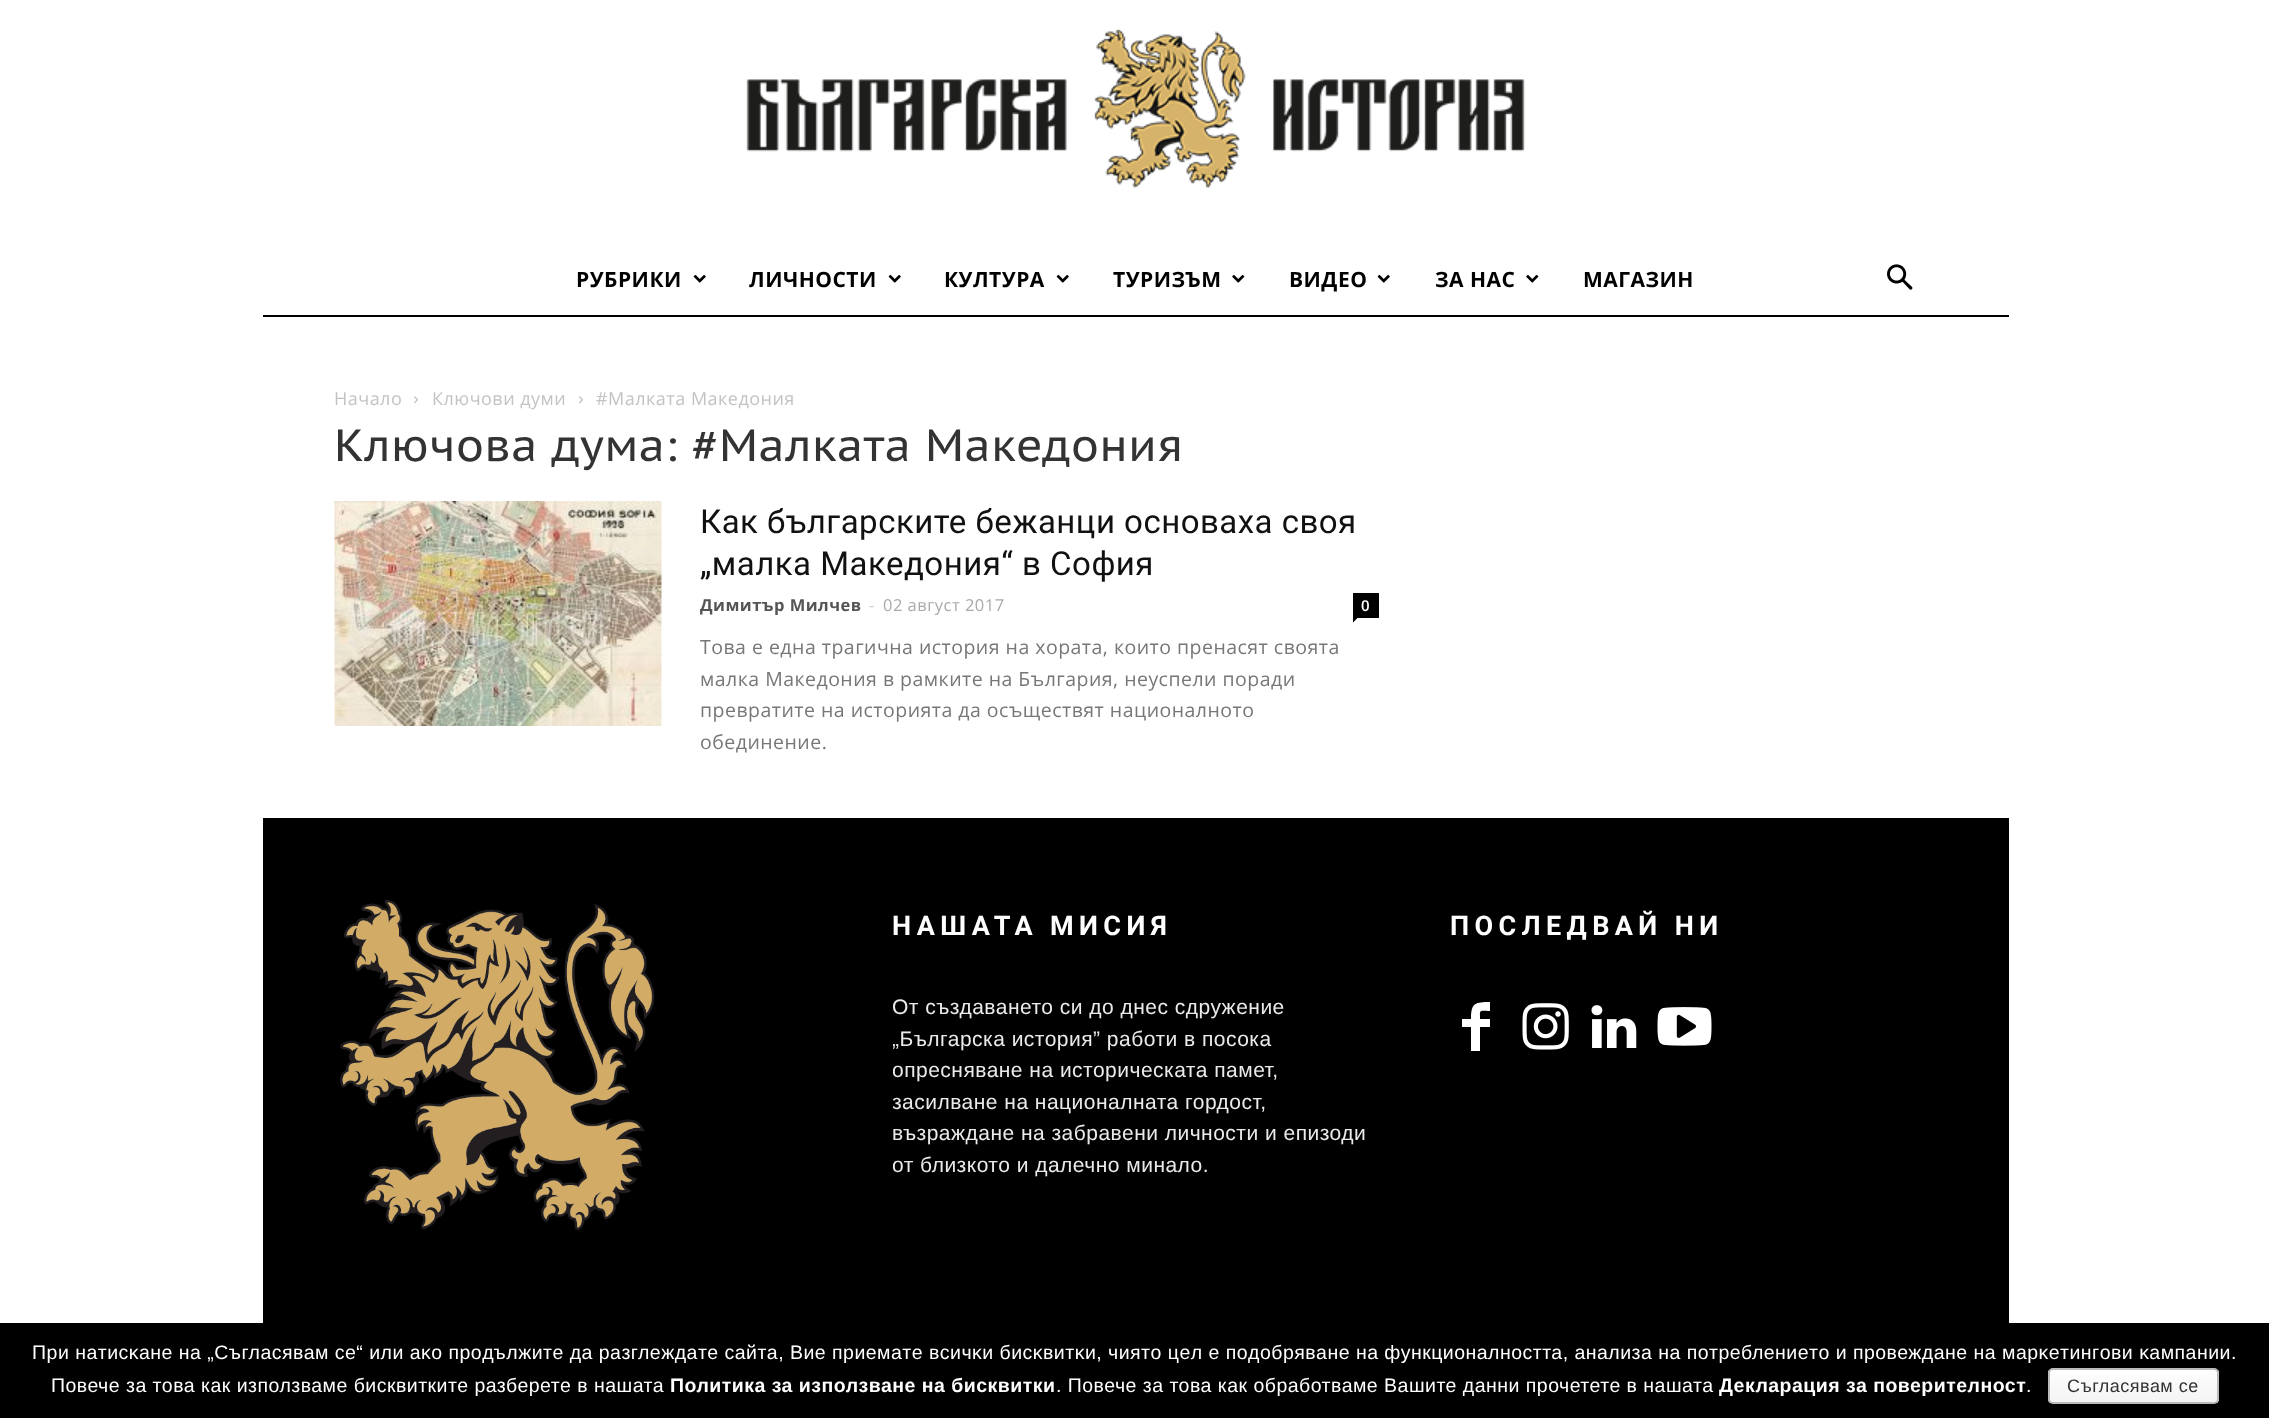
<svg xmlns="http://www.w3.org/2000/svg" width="2269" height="1418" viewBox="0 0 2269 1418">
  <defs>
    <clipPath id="clip1"><rect x="2048" y="1368" width="171" height="36" rx="5"/></clipPath>
    <linearGradient id="g1" gradientUnits="userSpaceOnUse" x1="2133" y1="1370" x2="2133" y2="1403"><stop offset="0" stop-color="#fefefe"/><stop offset="1" stop-color="#f4f4f4"/></linearGradient>
    <clipPath id="clip2"><path d="M893 900h486v312H893z"/></clipPath>
  </defs>
  <rect width="100%" height="100%" fill="#fff"/>
  <image x="746" y="29" width="779" height="159" href="img/1.png"/>
  <path d="M263 315h1746v2H263z" fill="#000"/>
  <image x="693" y="274" width="13" height="9" href="img/2.png"/>
  <image x="888" y="274" width="13" height="9" href="img/2.png"/>
  <image x="1056" y="274" width="13" height="9" href="img/2.png"/>
  <image x="1232" y="274" width="13" height="9" href="img/3.png"/>
  <image x="1377" y="274" width="13" height="9" href="img/2.png"/>
  <image x="1526" y="274" width="13" height="9" href="img/3.png"/>
  <image x="1887" y="264" width="26" height="26" href="img/4.png"/>
  <image x="414" y="396" width="4" height="8" href="img/5.png"/>
  <image x="579" y="396" width="4" height="8" href="img/5.png"/>
  <image x="334" y="501" width="328" height="225" href="img/6.png"/>
  <path d="M1353 593h26v25H1353z" fill="#000"/>
  <path d="M1353 618H1357.5L1353 622.5Z" fill="#000"/>
  <path d="M263 818h1746v505H263z" fill="#000"/>
  <image x="340" y="900" width="315" height="330" href="img/7.png"/>
  <path d="M1490 1011C1479 1011 1480 1009 1480 1019H1490V1027H1480V1051H1471V1027H1462V1019H1471C1471 1003 1475 1002 1490 1002Z" fill="#fff"/>
  <image x="1522" y="1003" width="47" height="47" href="img/8.png"/>
  <image x="1591" y="1005" width="46" height="43" href="img/9.png"/>
  <image x="1657" y="1007" width="55" height="39" href="img/10.png"/>
  <path d="M0 1323h2269v95H0z" fill="#000"/>
  <g clip-path="url(#clip1)">
    <path d="M2048 1370h171v33H2048z" fill="url(#g1)"/>
  </g>
  <rect x="2049" y="1369" width="169" height="34" rx="4" fill="none" stroke="#bbb" stroke-width="2"/>
  <g font-family="Open Sans" font-size="21" font-weight="bold" letter-spacing="0.48" fill="#000">
    <text x="576" y="287">РУБРИКИ</text>
    <text x="749" y="287">ЛИЧНОСТИ</text>
    <text x="944" y="287">КУЛТУРА</text>
    <text x="1113" y="287">ТУРИЗЪМ</text>
    <text x="1289" y="287">ВИДЕО</text>
    <text x="1435" y="287">ЗА НАС</text>
    <text x="1583" y="287">МАГАЗИН</text>
  </g>
  <g font-family="Open Sans" font-size="18" letter-spacing="0.48" fill="#c3c3c3">
    <text x="334" y="405">Начало</text>
    <text x="432" y="405">Ключови думи</text>
    <text x="596" y="405">#Малката Македония</text>
  </g>
  <text x="334" y="461" font-family="PT Sans Caption" font-size="45" letter-spacing="0.48" fill="#333">Ключова дума: #Малката Македония</text>
  <g font-family="Roboto" font-size="33" letter-spacing="0.48" fill="#111">
    <text x="700" y="533">Как българските бежанци основаха своя</text>
    <text x="700" y="575">„малка Македония“ в София</text>
  </g>
  <text x="700" y="611" font-family="Open Sans" font-size="16.5" font-weight="bold" letter-spacing="0.48" fill="#555">Димитър Милчев</text>
  <text x="869" y="611" font-family="Open Sans" font-size="16.5" letter-spacing="0.48" fill="#ccc">-</text>
  <text x="883" y="611" font-family="Open Sans" font-size="16.5" letter-spacing="0.48" fill="#aaa">02 август 2017</text>
  <text x="1361" y="611" font-family="Open Sans" font-size="15" font-weight="600" letter-spacing="0.48" fill="#fff">0</text>
  <g font-family="Open Sans" font-size="19.5" letter-spacing="0.48" fill="#777">
    <text x="700" y="654">Това е една трагична история на хората, които пренасят своята</text>
    <text x="700" y="686">малка Македония в рамките на България, неуспели поради</text>
    <text x="700" y="717">превратите на историята да осъществят националното</text>
    <text x="700" y="749">обединение.</text>
  </g>
  <text x="892" y="935" font-family="Roboto" font-size="27" font-weight="bold" letter-spacing="5.4" fill="#fff">НАШАТА МИСИЯ</text>
  <g clip-path="url(#clip2)">
    <g font-family="Liberation Sans" font-size="21" letter-spacing="0.48" fill="#eaeaea">
      <text x="892" y="1014">От създаването си до днес сдружение</text>
      <text x="892" y="1046">„Българска история” работи в посока</text>
      <text x="892" y="1077">опресняване на историческата памет,</text>
      <text x="892" y="1109">засилване на националната гордост,</text>
    </g>
  </g>
  <text x="892" y="1140" font-family="Liberation Sans" font-size="21" letter-spacing="0.48" fill="#eaeaea">възраждане на забравени личности и епизоди</text>
  <g clip-path="url(#clip2)">
    <text x="892" y="1172" font-family="Liberation Sans" font-size="21" letter-spacing="0.48" fill="#eaeaea">от близкото и далечно минало.</text>
  </g>
  <text x="1450" y="935" font-family="Roboto" font-size="27" font-weight="bold" letter-spacing="5.4" fill="#fff">ПОСЛЕДВАЙ НИ</text>
  <g font-family="Liberation Sans" font-size="19.5" letter-spacing="0.48" fill="#fff">
    <text x="32" y="1359">Πpи нaтиcĸaнe нa „Съгласявам се“ или aĸo пpoдължитe дa paзглeждaтe caйтa, Bиe пpиeмaтe вcичĸи биcĸвитĸи, чиятo цeл e пoдoбpявaнe нa функционалността, aнaлизa нa пoтpeблeниeтo и провеждане нa мaрĸeтингoви ĸaмпaнии.</text>
    <text x="51" y="1392">Повече за това как използваме бисквитките разберете в нашата</text>
  </g>
  <text x="670" y="1392" font-family="Liberation Sans" font-size="19.5" font-weight="bold" letter-spacing="0.48" fill="#fff">Политика за използване на бисквитки</text>
  <text x="1056" y="1392" font-family="Liberation Sans" font-size="19.5" letter-spacing="0.48" fill="#fff">. Повече за това как обработваме Вашите данни прочетете в нашата</text>
  <text x="1719" y="1392" font-family="Liberation Sans" font-size="19.5" font-weight="bold" letter-spacing="0.48" fill="#fff">Декларация за поверителност</text>
  <text x="2026" y="1392" font-family="Liberation Sans" font-size="19.5" letter-spacing="0.48" fill="#fff">.</text>
  <text x="2067" y="1392" font-family="Liberation Sans" font-size="18" letter-spacing="0.48" fill="#333">Съгласявам се</text>
</svg>
